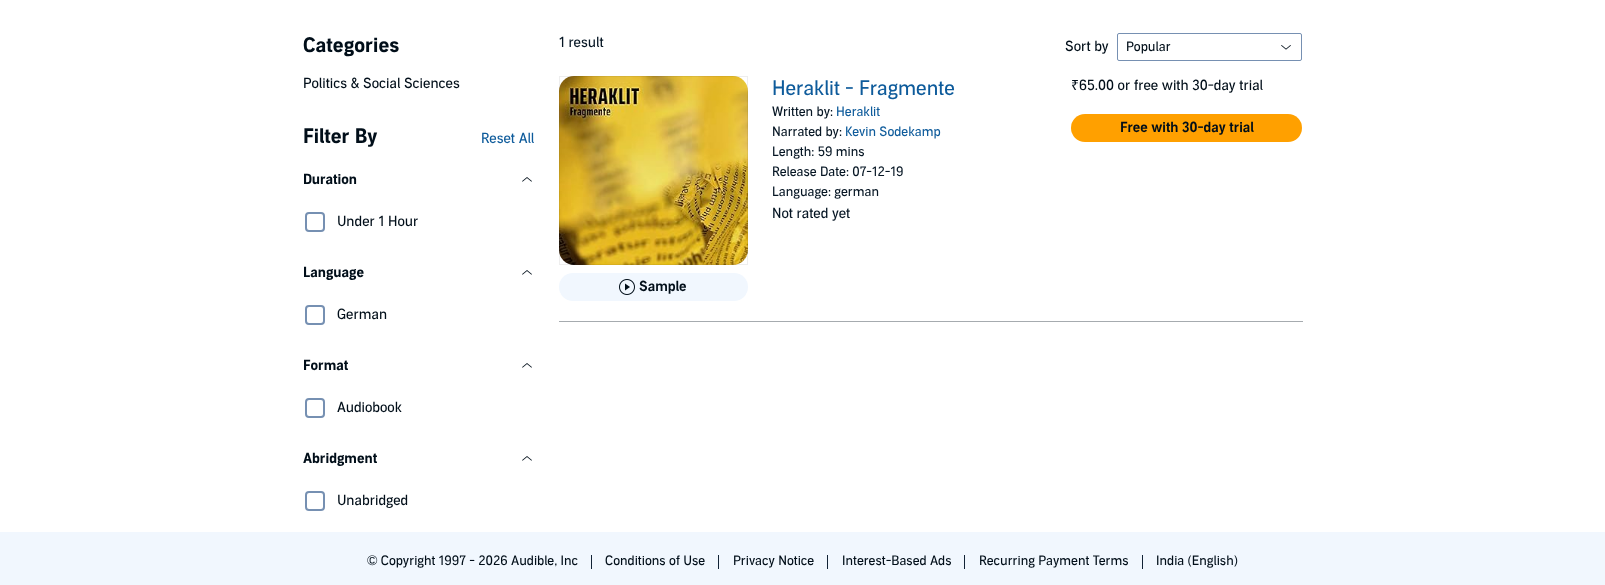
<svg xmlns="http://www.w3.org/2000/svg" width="1605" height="585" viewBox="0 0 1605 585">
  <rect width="100%" height="100%" fill="#fff"/>
  <image x="522" y="177" width="10" height="5" href="img/1.png"/>
  <rect x="306" y="213" width="18" height="18" rx="3" fill="none" stroke="#7690b2" stroke-width="2"/>
  <image x="522" y="270" width="10" height="5" href="img/1.png"/>
  <rect x="306" y="306" width="18" height="18" rx="3" fill="none" stroke="#7690b2" stroke-width="2"/>
  <image x="522" y="363" width="10" height="5" href="img/1.png"/>
  <rect x="306" y="399" width="18" height="18" rx="3" fill="none" stroke="#7690b2" stroke-width="2"/>
  <image x="522" y="456" width="10" height="5" href="img/1.png"/>
  <rect x="306" y="492" width="18" height="18" rx="3" fill="none" stroke="#7690b2" stroke-width="2"/>
  <rect x="1117.5" y="33.5" width="184" height="27" rx="1.5" fill="none" stroke="#7690b2"/>
  <image x="1281" y="45" width="10" height="5" href="img/2.png"/>
  <image x="559" y="76" width="189" height="189" href="img/3.png"/>
  <path d="M559.5 76.5h188v188H559.5z" fill="none" stroke="#21232514"/>
  <rect x="559" y="273" width="189" height="28" rx="14" fill="#f1f7fe"/>
  <image x="619" y="279" width="16" height="16" href="img/4.png"/>
  <rect x="1071" y="114" width="231" height="28" rx="14" fill="#ffa000"/>
  <path d="M559 321h744v1H559z" fill="#a6abaf"/>
  <path d="M0 532h1605v53H0z" fill="#f1f7fe"/>
  <path d="M591 555h1v14H591z" fill="#112235"/>
  <path d="M718 555h1v14H718z" fill="#112235"/>
  <path d="M827 555h1v14H827z" fill="#112235"/>
  <path d="M964 555h1v14H964z" fill="#112235"/>
  <path d="M1142 555h1v14H1142z" fill="#112235"/>
  <text x="303" y="52" font-family="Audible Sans" font-size="20" font-weight="bold" fill="#010e19">Categories</text>
  <text x="303" y="88" font-family="Audible Sans" font-size="14" fill="#010e19">Politics &amp; Social Sciences</text>
  <text x="303" y="143" font-family="Audible Sans" font-size="20" font-weight="bold" fill="#010e19">Filter By</text>
  <text x="481" y="143" font-family="Audible Sans" font-size="14" fill="#0e5b9b">Reset All</text>
  <text x="303" y="184" font-family="Audible Sans" font-size="14" font-weight="bold" fill="#010e19">Duration</text>
  <text x="337" y="226" font-family="Audible Sans" font-size="14" fill="#010e19">Under 1 Hour</text>
  <text x="303" y="277" font-family="Audible Sans" font-size="14" font-weight="bold" fill="#010e19">Language</text>
  <text x="337" y="319" font-family="Audible Sans" font-size="14" fill="#010e19">German</text>
  <text x="303" y="370" font-family="Audible Sans" font-size="14" font-weight="bold" fill="#010e19">Format</text>
  <text x="337" y="412" font-family="Audible Sans" font-size="14" fill="#010e19">Audiobook</text>
  <text x="303" y="463" font-family="Audible Sans" font-size="14" font-weight="bold" fill="#010e19">Abridgment</text>
  <text x="337" y="505" font-family="Audible Sans" font-size="14" fill="#010e19">Unabridged</text>
  <text x="559" y="47" font-family="Audible Sans" font-size="14" fill="#061624">1 result</text>
  <text x="1065" y="51" font-family="Audible Sans" font-size="14" fill="#010e19">Sort by</text>
  <text x="1126" y="51" font-family="Audible Sans" font-size="13" fill="#010e19">Popular</text>
  <text x="772" y="95" font-family="Audible Sans" font-size="20" fill="#0e5b9b">Heraklit - Fragmente</text>
  <text x="772" y="116" font-family="Audible Sans" font-size="13" fill="#061624">Written by:</text>
  <text x="836" y="116" font-family="Audible Sans" font-size="13" fill="#0e5b9b">Heraklit</text>
  <text x="772" y="136" font-family="Audible Sans" font-size="13" fill="#061624">Narrated by:</text>
  <text x="845" y="136" font-family="Audible Sans" font-size="13" fill="#0e5b9b">Kevin Sodekamp</text>
  <g font-family="Audible Sans" font-size="13" fill="#061624">
    <text x="772" y="156">Length: 59 mins</text>
    <text x="772" y="176">Release Date: 07-12-19</text>
    <text x="772" y="196">Language: german</text>
  </g>
  <text x="772" y="218" font-family="Audible Sans" font-size="14" fill="#061624">Not rated yet</text>
  <text x="639" y="291" font-family="Audible Sans" font-size="14" font-weight="600" fill="#010e19">Sample</text>
  <text x="1071" y="90" font-family="Noto Sans" font-size="14" fill="#010e19">₹</text>
  <text x="1079" y="90" font-family="Audible Sans" font-size="14" fill="#010e19">65.00 or free with 30-day trial</text>
  <text x="1120" y="132" font-family="Audible Sans" font-size="14" font-weight="600" fill="#010e19">Free with 30-day trial</text>
  <g font-family="Audible Sans" font-size="13" fill="#010e19">
    <text x="367" y="565">© Copyright 1997 - 2026 Audible, Inc</text>
    <text x="605" y="565">Conditions of Use</text>
    <text x="733" y="565">Privacy Notice</text>
    <text x="842" y="565">Interest-Based Ads</text>
    <text x="979" y="565">Recurring Payment Terms</text>
    <text x="1156" y="565">India (English)</text>
  </g>
</svg>
